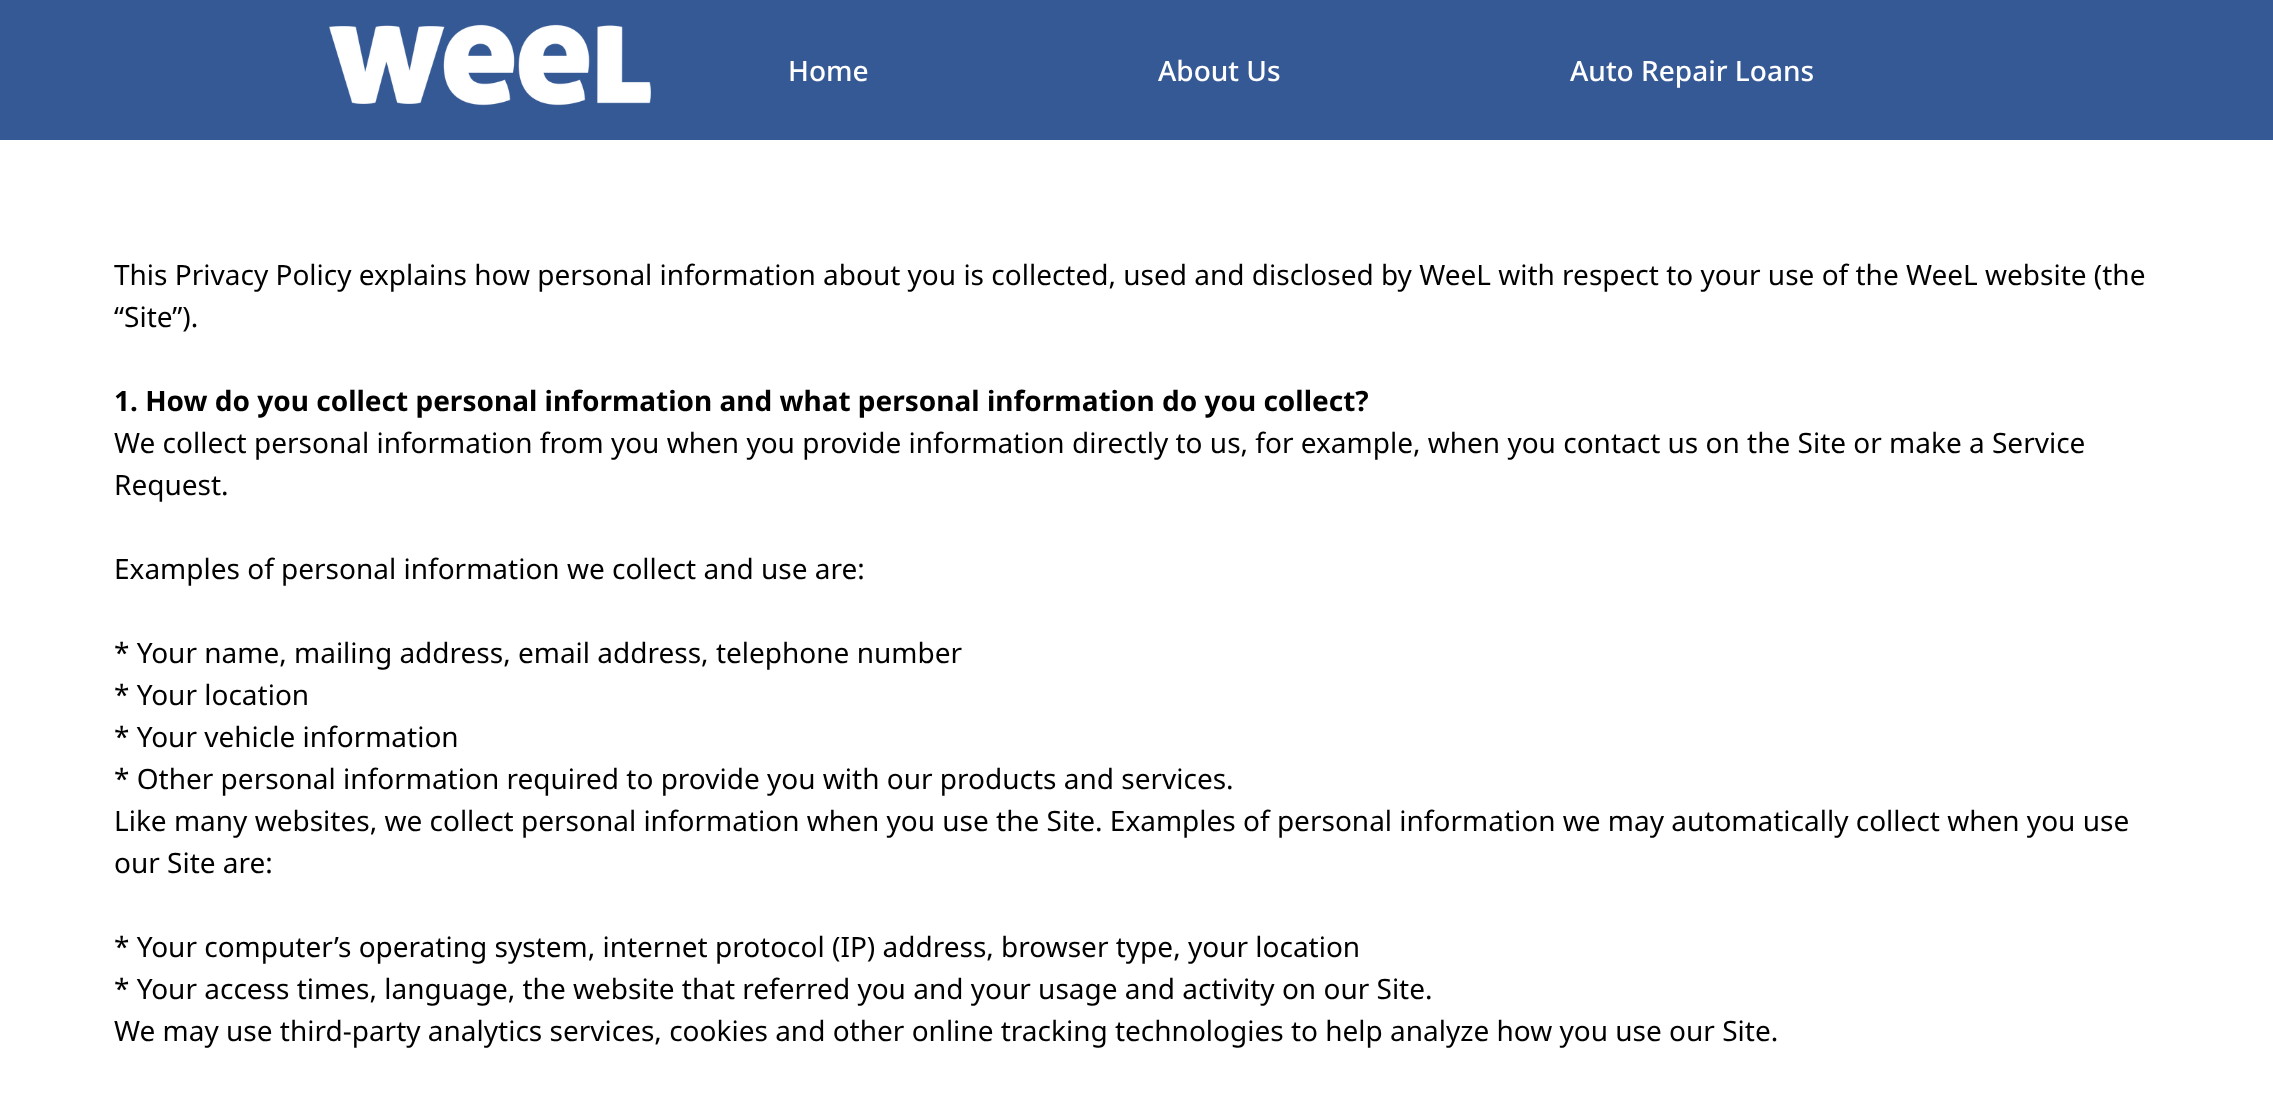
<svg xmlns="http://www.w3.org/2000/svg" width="2273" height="1111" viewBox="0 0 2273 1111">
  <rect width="100%" height="100%" fill="#fff"/>
  <path d="M0 0h2273v140H0z" fill="#355995"/>
  <image x="329" y="24" width="322" height="82" href="img/1.png"/>
  <g font-family="Noto Sans" font-size="28" font-weight="500" fill="#fff">
    <text x="788" y="81">Home</text>
    <text x="1158" y="81">About Us</text>
    <text x="1570" y="81">Auto Repair Loans</text>
  </g>
  <g font-family="Noto Sans" font-size="28" fill="#000">
    <text x="114" y="285">This Privacy Policy explains how personal information about you is collected, used and disclosed by WeeL with respect to your use of the WeeL website (the</text>
    <text x="114" y="327">“Site”).</text>
  </g>
  <text x="114" y="411" font-family="Noto Sans" font-size="28" font-weight="bold" fill="#000">1. How do you collect personal information and what personal information do you collect?</text>
  <g font-family="Noto Sans" font-size="28" fill="#000">
    <text x="114" y="453">We collect personal information from you when you provide information directly to us, for example, when you contact us on the Site or make a Service</text>
    <text x="114" y="495">Request.</text>
    <text x="114" y="579">Examples of personal information we collect and use are:</text>
    <text x="114" y="663">* Your name, mailing address, email address, telephone number</text>
    <text x="114" y="705">* Your location</text>
    <text x="114" y="747">* Your vehicle information</text>
    <text x="114" y="789">* Other personal information required to provide you with our products and services.</text>
    <text x="114" y="831">Like many websites, we collect personal information when you use the Site. Examples of personal information we may automatically collect when you use</text>
    <text x="114" y="873">our Site are:</text>
    <text x="114" y="957">* Your computer’s operating system, internet protocol (IP) address, browser type, your location</text>
    <text x="114" y="999">* Your access times, language, the website that referred you and your usage and activity on our Site.</text>
    <text x="114" y="1041">We may use third-party analytics services, cookies and other online tracking technologies to help analyze how you use our Site.</text>
  </g>
</svg>
